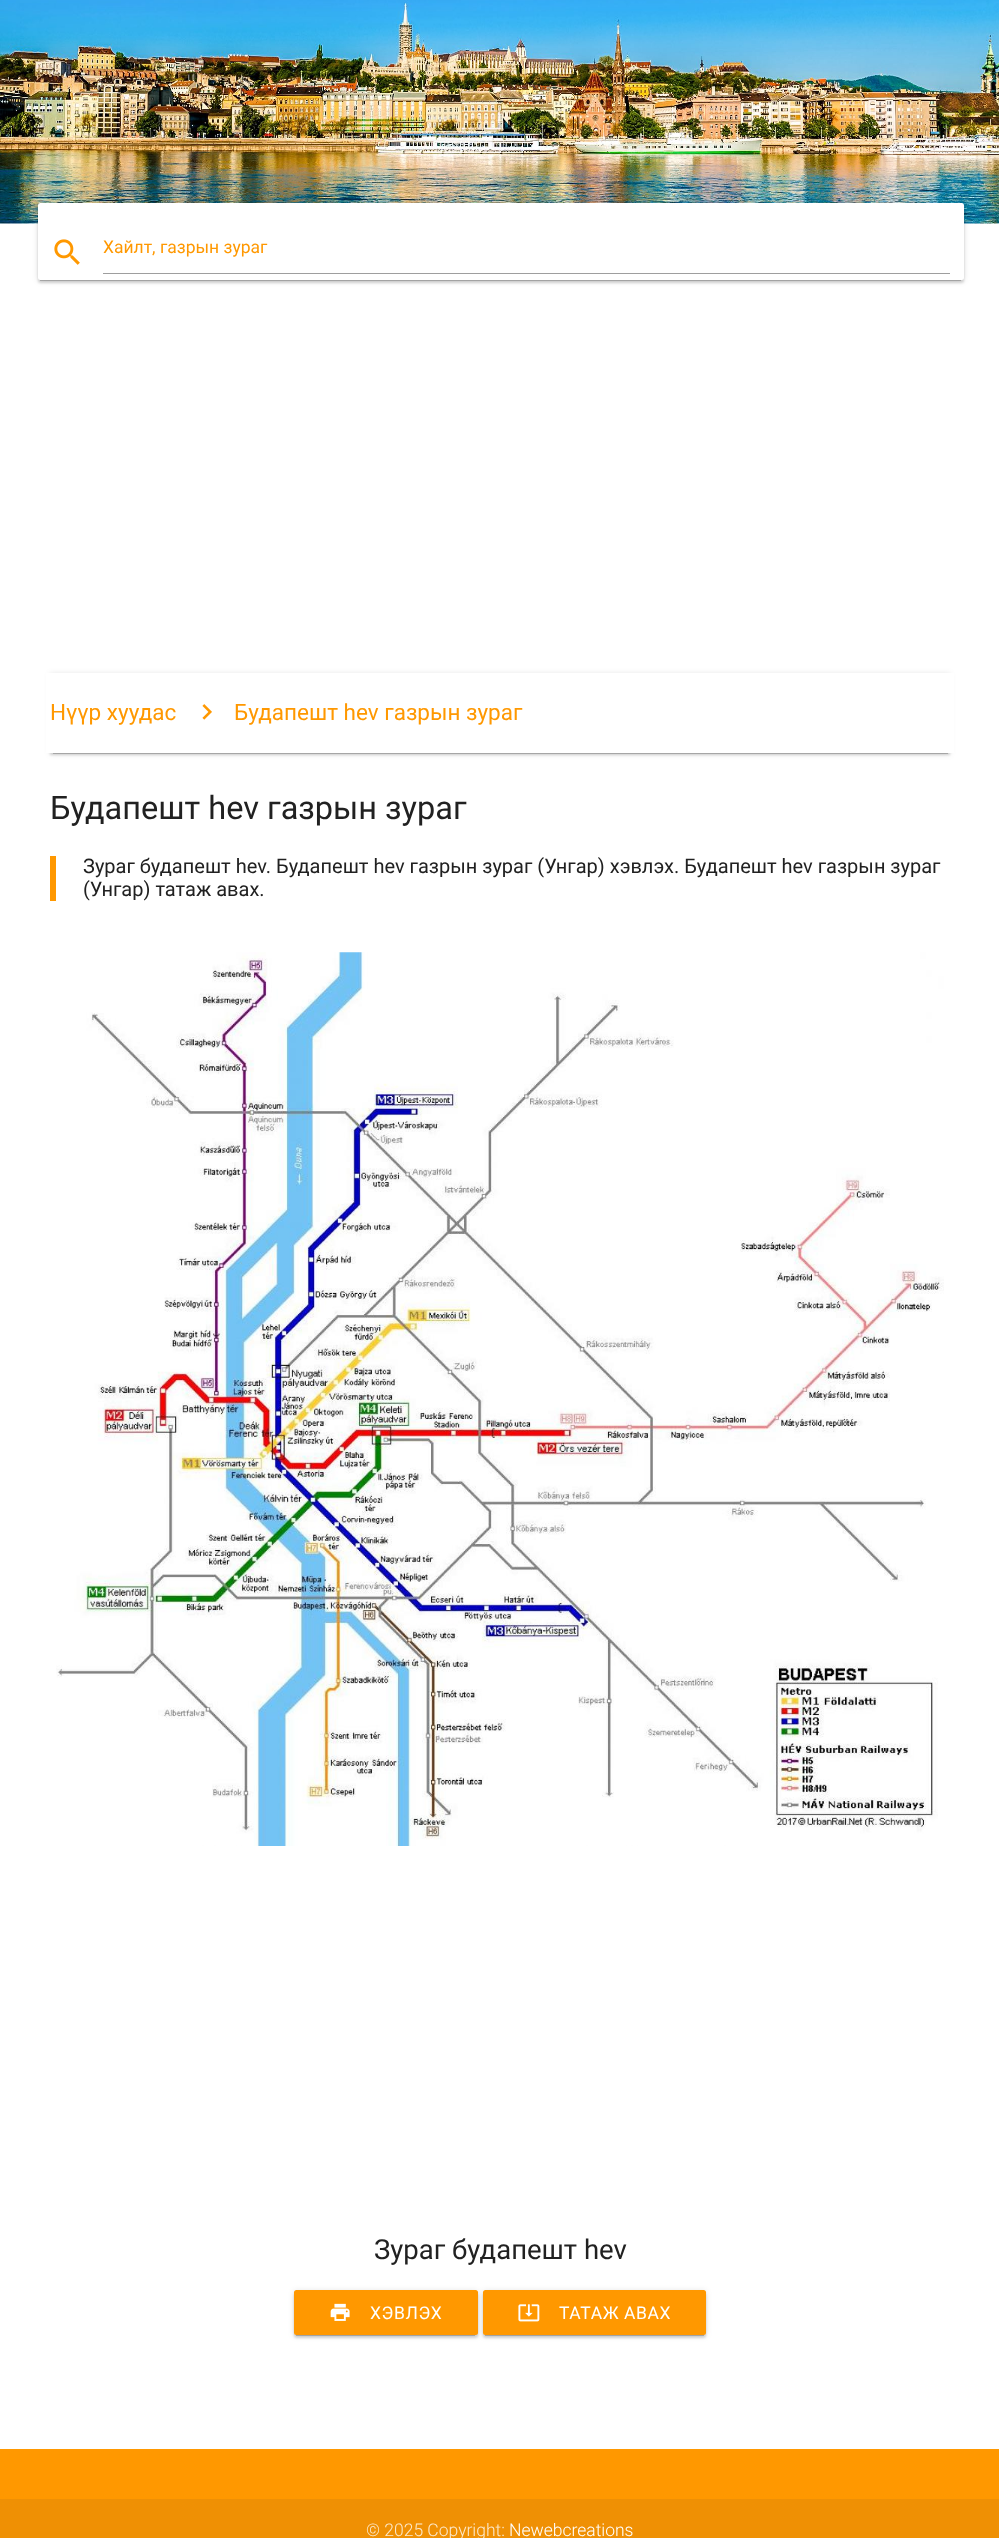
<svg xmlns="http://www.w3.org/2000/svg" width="999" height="2538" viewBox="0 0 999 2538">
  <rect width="100%" height="100%" fill="#fff"/>
  <image x="0" y="0" width="999" height="224" href="img/1.png"/>
  <path d="M40 209h921v72H40z" fill="#00000033" filter="blur(0.5px)"/>
  <rect x="38" y="204" width="926" height="77" rx="2.5" fill="#0000001f" filter="blur(3px)"/>
  <rect x="38" y="205" width="926" height="78" rx="2.5" fill="#00000024" filter="blur(1px)"/>
  <rect x="38" y="203" width="926" height="77" rx="2.5" fill="#fff"/>
  <image x="54" y="239" width="26" height="26" href="img/2.png"/>
  <path d="M103 273h847v1H103z" fill="#9e9e9e"/>
  <path d="M53 679h895v75H53z" fill="#00000033" filter="blur(0.5px)"/>
  <path d="M50 674h900v80H50z" fill="#0000001f" filter="blur(3px)"/>
  <path d="M50 675h900v80H50z" fill="#00000024" filter="blur(1px)"/>
  <path d="M46 673h908v80H46z" fill="#fff"/>
  <image x="202" y="704" width="10" height="16" href="img/3.png"/>
  <path d="M50 856h6v45H50z" fill="#ff9800"/>
  <image x="56" y="952" width="888" height="894" href="img/4.png"/>
  <path d="M296 2296h179v40H296z" fill="#00000033" filter="blur(0.5px)"/>
  <rect x="294" y="2291" width="184" height="45" rx="2.5" fill="#0000001f" filter="blur(3px)"/>
  <rect x="294" y="2293" width="184" height="45" rx="2.5" fill="#00000024" filter="blur(1px)"/>
  <rect x="294" y="2290" width="184" height="45" rx="2.5" fill="#ff9800"/>
  <image x="330" y="2303" width="20" height="18" href="img/5.png"/>
  <path d="M485 2296h219v40H485z" fill="#00000033" filter="blur(0.5px)"/>
  <rect x="483" y="2291" width="223" height="45" rx="2.5" fill="#0000001f" filter="blur(3px)"/>
  <rect x="483" y="2293" width="223" height="45" rx="2.5" fill="#00000024" filter="blur(1px)"/>
  <rect x="483" y="2290" width="223" height="45" rx="2.5" fill="#ff9800"/>
  <image x="518" y="2304" width="22" height="18" href="img/6.png"/>
  <path d="M0 2449h999v50H0z" fill="#ff9800"/>
  <path d="M0 2499h999v39H0z" fill="#ef9004"/>
  <text x="103" y="253" font-family="Roboto" font-size="17.5" fill="#ff9800">Хайлт, газрын зураг</text>
  <g font-family="Roboto" font-size="22.5" fill="#ff9800">
    <text x="50" y="720">Нүүр хуудас</text>
    <text x="234" y="720">Будапешт hev газрын зураг</text>
  </g>
  <text x="50" y="819" font-family="Roboto" font-size="32.5" fill="#212121">Будапешт hev газрын зураг</text>
  <g font-family="Roboto" font-size="20" fill="#212121">
    <text x="83" y="873">Зураг будапешт hev. Будапешт hev газрын зураг (Унгар) хэвлэх. Будапешт hev газрын зураг</text>
    <text x="83" y="896">(Унгар) татаж авах.</text>
  </g>
  <text x="374" y="2259" font-family="Roboto" font-size="27.5" fill="#212121">Зураг будапешт hev</text>
  <g font-family="Roboto" font-size="17.5" letter-spacing="0.6" fill="#fff">
    <text x="370" y="2319">ХЭВЛЭХ</text>
    <text x="559" y="2319">ТАТАЖ АВАХ</text>
  </g>
  <text x="366" y="2536" font-family="Roboto" font-size="17.5" font-weight="300" fill="#fce9cd">© 2025 Copyright:</text>
  <text x="509" y="2536" font-family="Roboto" font-size="17.5" font-weight="300" fill="#fff">Newebcreations</text>
</svg>
